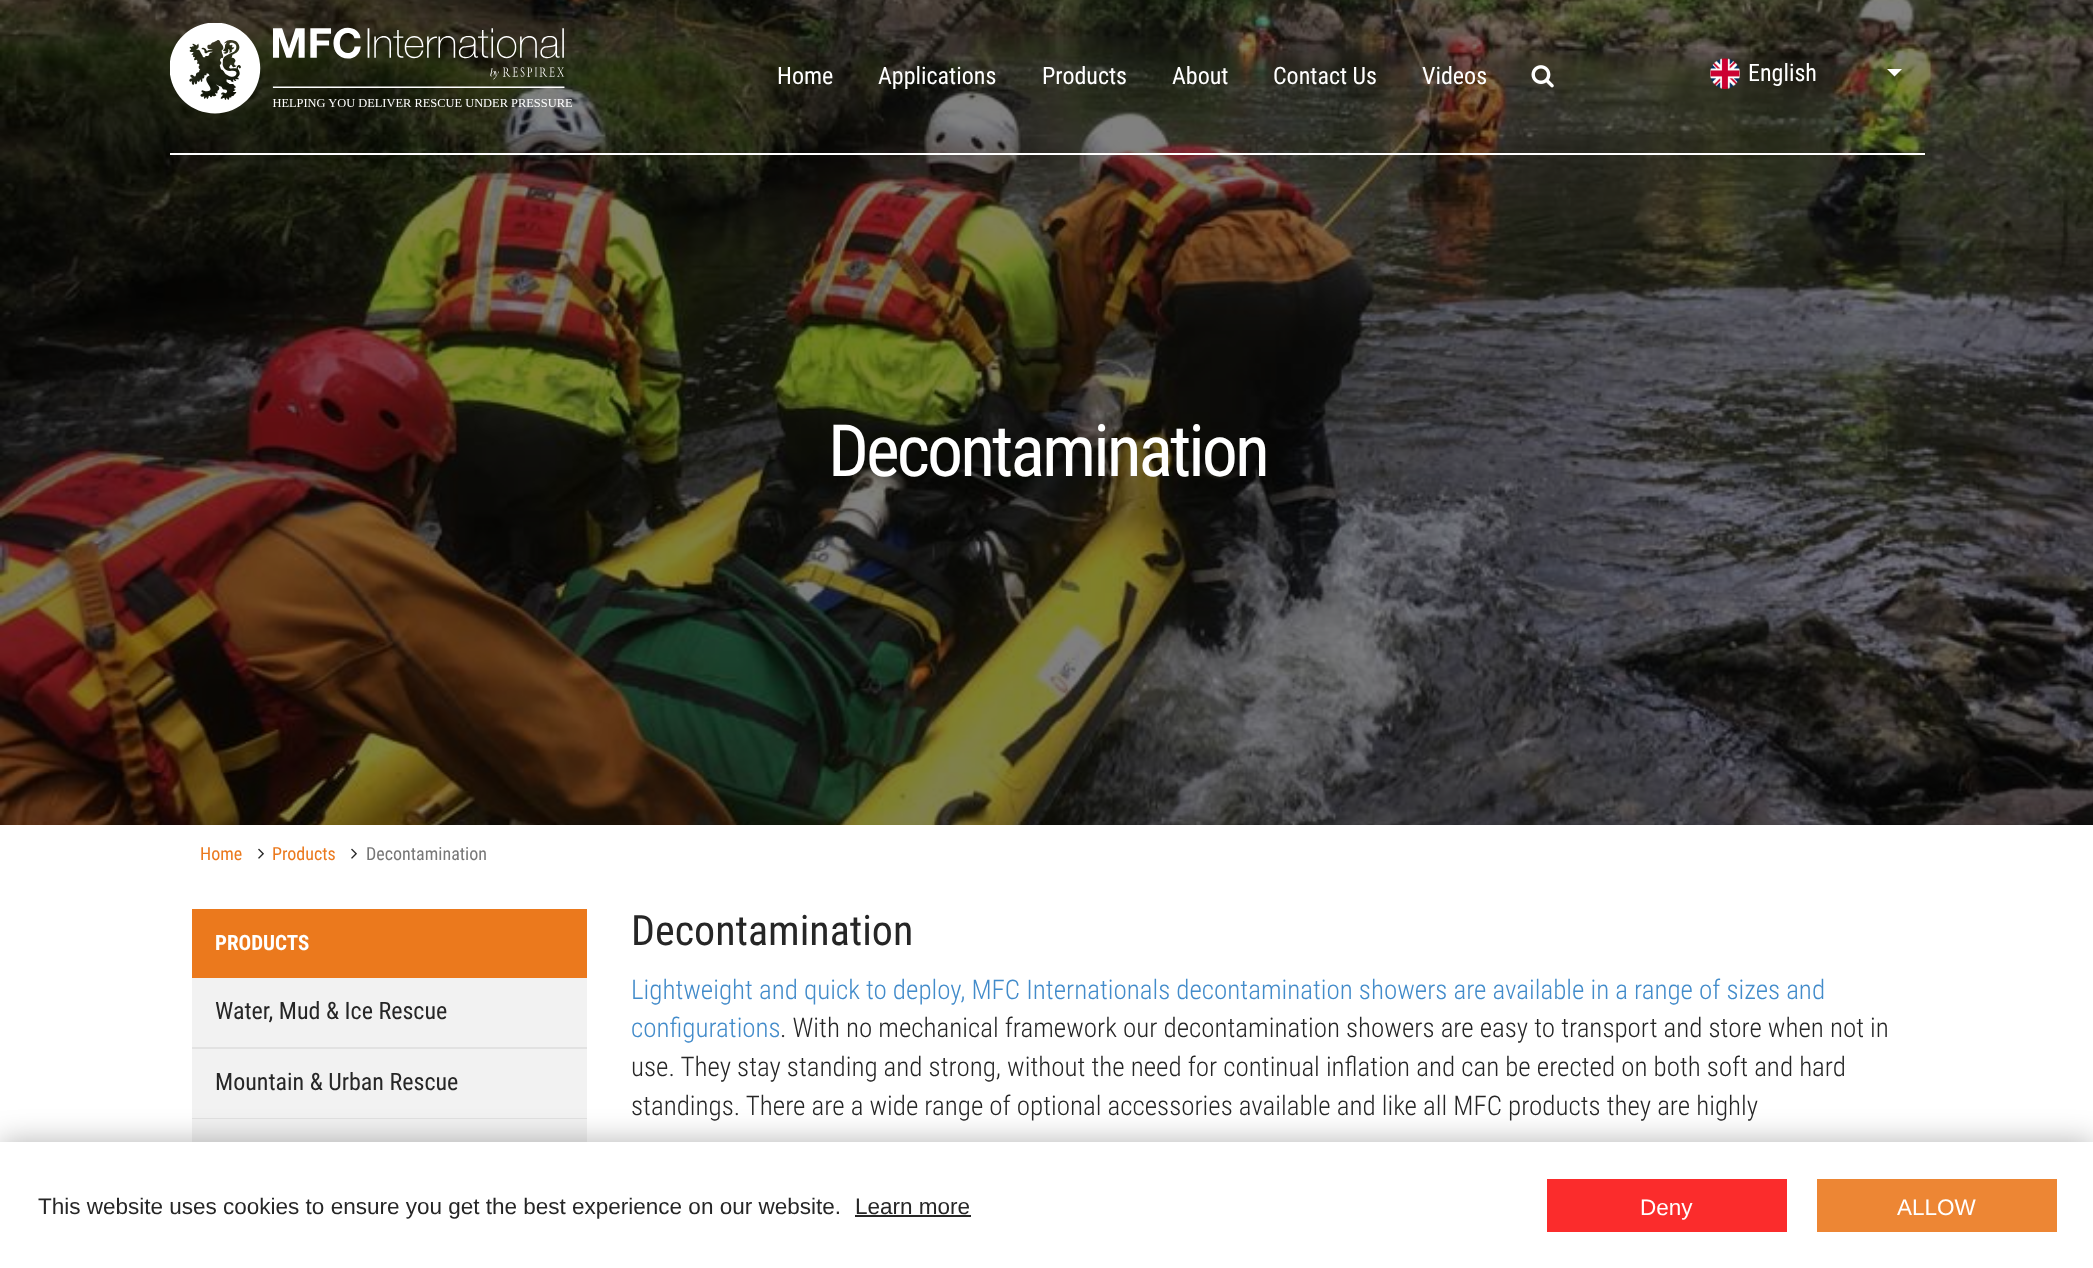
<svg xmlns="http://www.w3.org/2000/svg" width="2093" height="1268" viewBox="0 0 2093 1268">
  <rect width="100%" height="100%" fill="#fff"/>
  <path d="M0 0h2093v825H0z" fill="#000"/>
  <image x="0" y="0" width="2093" height="825" href="img/4.png"/>
  <image x="170" y="23" width="402" height="91" href="img/1.png"/>
  <image x="1531" y="65" width="23" height="23" href="img/2.png"/>
  <image x="1710" y="58" width="30" height="31" href="img/3.png"/>
  <path d="M1887 69H1902L1894.5 76.5Z" fill="#fff"/>
  <path d="M170 153h1755v2H170z" fill="#fff"/>
  <image x="258" y="848" width="6" height="11" href="img/5.png"/>
  <image x="351" y="848" width="6" height="11" href="img/5.png"/>
  <path d="M192 909h395v69H192z" fill="#eb791d"/>
  <path d="M192 1047h395v2H192z" fill="#e2e2e2"/>
  <path d="M192 978h395v69H192z" fill="#f2f2f2"/>
  <path d="M192 1118h395v1H192z" fill="#e2e2e2"/>
  <path d="M192 1049h395v69H192z" fill="#f2f2f2"/>
  <path d="M192 1119h395v23H192z" fill="#f2f2f2"/>
  <path d="M0 1142h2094v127H0z" fill="#0000004d" filter="blur(15px)"/>
  <path d="M0 1142h2093v126H0z" fill="#fff"/>
  <path d="M855 1215h116v2H855z" fill="#262626"/>
  <path d="M1548 1180h238v51H1548z" fill="#fb2c2c" stroke="#fb2c2c" stroke-width="2"/>
  <path d="M1818 1180h238v51H1818z" fill="#ed8634" stroke="#ed8634" stroke-width="2"/>
  <g font-family="Roboto Condensed" font-size="24" fill="#fff">
    <text x="777" y="84">Home</text>
    <text x="878" y="84">Applications</text>
    <text x="1042" y="84">Products</text>
    <text x="1172" y="84">About</text>
    <text x="1273" y="84">Contact Us</text>
    <text x="1422" y="84">Videos</text>
    <text x="1748" y="81">English</text>
  </g>
  <text x="828" y="476" font-family="Roboto Condensed" font-size="72" letter-spacing="-3" fill="#fff">Decontamination</text>
  <g font-family="Roboto Condensed" font-size="18" fill="#eb791d">
    <text x="200" y="860">Home</text>
    <text x="272" y="860">Products</text>
  </g>
  <text x="366" y="860" font-family="Roboto Condensed" font-size="18" fill="#777">Decontamination</text>
  <text x="215" y="950" font-family="Roboto Condensed" font-size="21" font-weight="bold" fill="#fff">PRODUCTS</text>
  <g font-family="Roboto Condensed" font-size="24" fill="#262626">
    <text x="215" y="1019">Water, Mud &amp; Ice Rescue</text>
    <text x="215" y="1090">Mountain &amp; Urban Rescue</text>
  </g>
  <text x="631" y="945" font-family="Roboto Condensed" font-size="42" fill="#262626">Decontamination</text>
  <g font-family="Roboto Condensed" font-size="27" font-weight="300" fill="#428bca">
    <text x="631" y="999">Lightweight and quick to deploy, MFC Internationals decontamination showers are available in a range of sizes and</text>
    <text x="631" y="1037">configurations</text>
  </g>
  <g font-family="Roboto Condensed" font-size="27" font-weight="300" fill="#262626">
    <text x="780" y="1037">. With no mechanical framework our decontamination showers are easy to transport and store when not in</text>
    <text x="631" y="1076">use. They stay standing and strong, without the need for continual inflation and can be erected on both soft and hard</text>
    <text x="631" y="1115">standings. There are a wide range of optional accessories available and like all MFC products they are highly</text>
  </g>
  <g font-family="Liberation Sans" font-size="22.5" fill="#262626">
    <text x="38" y="1214">This website uses cookies to ensure you get the best experience on our website.</text>
    <text x="855" y="1214">Learn more</text>
  </g>
  <g font-family="Liberation Sans" font-size="22.5" fill="#fff">
    <text x="1640" y="1215">Deny</text>
    <text x="1897" y="1215">ALLOW</text>
  </g>
</svg>
